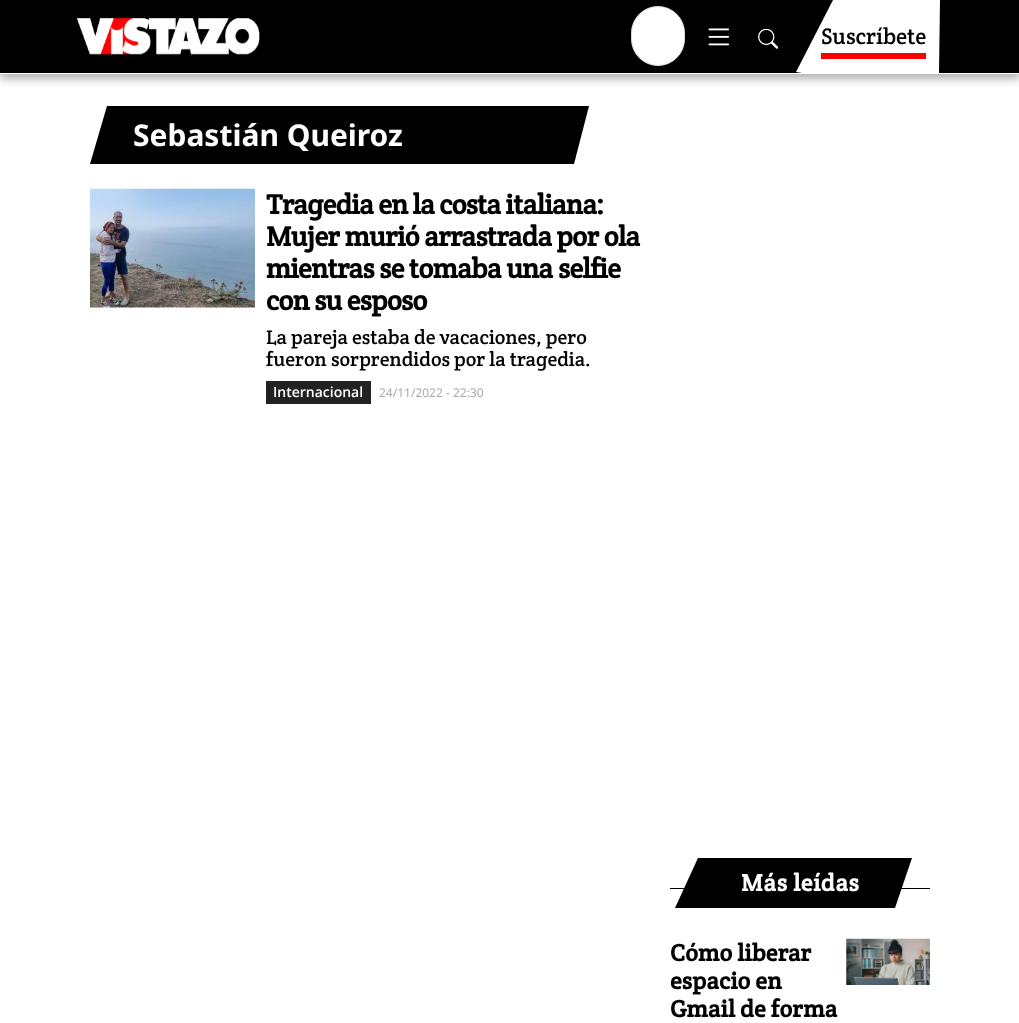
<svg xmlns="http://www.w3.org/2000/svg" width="1019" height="1023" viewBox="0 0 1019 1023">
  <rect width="100%" height="100%" fill="#fff"/>
  <path d="M0 5h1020v74H0z" fill="#0000004d" filter="blur(4px)"/>
  <path d="M0 0h1019v73H0z" fill="#000"/>
  <path d="M0 73h1019v1H0z" fill="#fff"/>
  <image x="77" y="18" width="183" height="37" href="img/1.png"/>
  <rect x="631.5" y="6.5" width="53" height="59" rx="26.5" fill="#fff" stroke="#ddd"/>
  <image x="708" y="28" width="21" height="18" href="img/2.png"/>
  <image x="758" y="29" width="21" height="20" href="img/3.png"/>
  <path d="M796 72L833 0H940L939 73H802Z" fill="#fff"/>
  <path d="M821 53h105v6H821z" fill="#f00"/>
  <path d="M589 106L574 164H90L107 106Z" fill="#000"/>
  <image x="90" y="188" width="165" height="120" href="img/4.png"/>
  <path d="M266 381h105v23H266z" fill="#222"/>
  <path d="M670 888h260v1H670z" fill="#000"/>
  <path d="M912 858L895 908H675L698 858Z" fill="#000"/>
  <image x="846" y="938" width="84" height="47" href="img/5.png"/>
  <text x="821" y="44" font-family="Crete Round" font-size="22.5" fill="#000">Suscríbete</text>
  <text x="133" y="146" font-family="Noto Sans" font-size="30" font-weight="bold" fill="#fff">Sebastián Queiroz</text>
  <g font-family="Crete Round" font-size="28" font-weight="bold" letter-spacing="-0.6" fill="#000">
    <text x="266" y="214">Tragedia en la costa italiana:</text>
    <text x="266" y="246">Mujer murió arrastrada por ola</text>
    <text x="266" y="278">mientras se tomaba una selfie</text>
    <text x="266" y="310">con su esposo</text>
  </g>
  <g font-family="Crete Round" font-size="20" fill="#000">
    <text x="266" y="344">La pareja estaba de vacaciones, pero</text>
    <text x="266" y="366">fueron sorprendidos por la tragedia.</text>
  </g>
  <text x="273" y="397" font-family="Open Sans" font-size="14" font-weight="600" fill="#fff">Internacional</text>
  <text x="379" y="397" font-family="Noto Sans" font-size="12" fill="#aaa">24/11/2022 - 22:30</text>
  <text x="741" y="891" font-family="Crete Round" font-size="24" font-weight="bold" letter-spacing="0.6" fill="#fff">Más leídas</text>
  <g font-family="Crete Round" font-size="24" font-weight="bold" letter-spacing="0.1" fill="#000">
    <text x="670" y="961">Cómo liberar</text>
    <text x="670" y="989">espacio en</text>
    <text x="670" y="1017">Gmail de forma</text>
  </g>
</svg>
